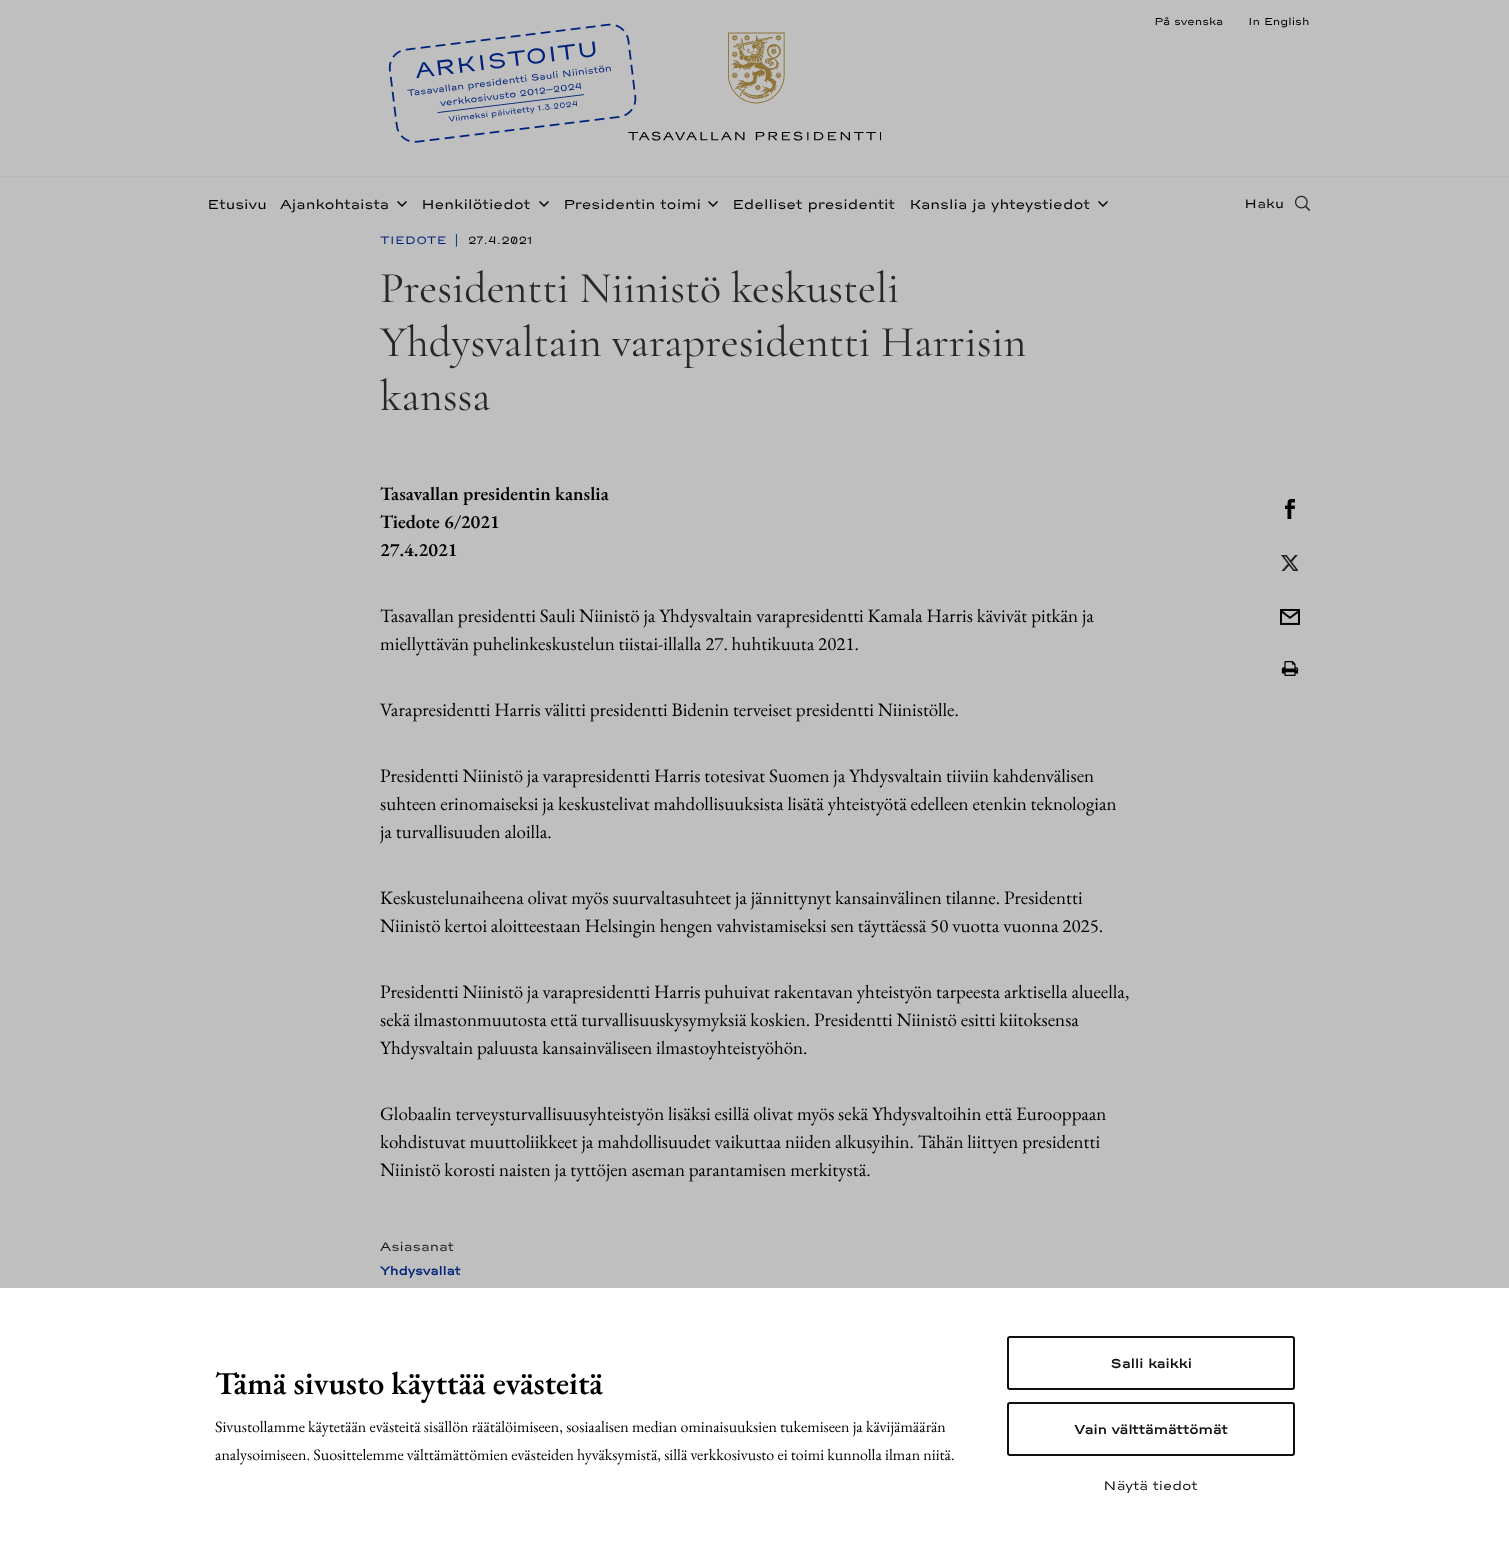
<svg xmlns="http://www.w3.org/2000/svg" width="1509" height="1550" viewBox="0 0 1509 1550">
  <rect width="100%" height="100%" fill="#bfbfbf"/>
  <path d="M0 176h1509v1H0z" fill="#b8b8b8"/>
  <image x="628" y="32" width="253" height="109" href="img/2.png"/>
  <image x="388" y="23" width="249" height="120" href="img/1.png"/>
  <image x="397" y="201" width="10" height="6" href="img/3.png"/>
  <image x="539" y="201" width="10" height="6" href="img/3.png"/>
  <image x="708" y="201" width="10" height="6" href="img/3.png"/>
  <image x="1098" y="201" width="10" height="6" href="img/3.png"/>
  <image x="1295" y="195" width="15" height="16" href="img/4.png"/>
  <image x="1285" y="499" width="10" height="20" href="img/5.png"/>
  <image x="1281" y="555" width="17" height="16" href="img/6.png"/>
  <image x="1280" y="609" width="20" height="16" href="img/7.png"/>
  <image x="1281" y="661" width="18" height="15" href="img/8.png"/>
  <path d="M0 1288h1509v262H0z" fill="#fff"/>
  <rect x="1008" y="1337" width="286" height="52" rx="2" fill="none" stroke="#0f0f0f" stroke-width="2"/>
  <rect x="1008" y="1403" width="286" height="52" rx="2" fill="none" stroke="#0f0f0f" stroke-width="2"/>
  <g font-family="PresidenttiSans" font-size="13" fill="#000">
    <text x="1154" y="25">På svenska</text>
    <text x="1248" y="25">In English</text>
  </g>
  <g font-family="PresidenttiSans" font-size="17" fill="#000">
    <text x="207" y="209">Etusivu</text>
    <text x="280" y="209">Ajankohtaista</text>
    <text x="421" y="209">Henkilötiedot</text>
    <text x="563" y="209">Presidentin toimi</text>
    <text x="732" y="209">Edelliset presidentit</text>
    <text x="909" y="209">Kanslia ja yhteystiedot</text>
  </g>
  <text x="1244" y="208" font-family="PresidenttiSans" font-size="16" fill="#000">Haku</text>
  <g font-family="PresidenttiSans" font-size="14" fill="#00237a">
    <text x="380" y="244">TIEDOTE</text>
    <text x="454" y="244">|</text>
  </g>
  <text x="468" y="244" font-family="PresidenttiSans" font-size="14" fill="#000">27.4.2021</text>
  <g font-family="Cormorant Garamond" font-size="44" fill="#272727">
    <text x="380" y="302">Presidentti Niinistö keskusteli</text>
    <text x="380" y="356">Yhdysvaltain varapresidentti Harrisin</text>
    <text x="380" y="410">kanssa</text>
  </g>
  <g font-family="EB Garamond" font-size="19" font-weight="600" fill="#000">
    <text x="380" y="500">Tasavallan presidentin kanslia</text>
    <text x="380" y="528">Tiedote 6/2021</text>
    <text x="380" y="556">27.4.2021</text>
  </g>
  <g font-family="EB Garamond" font-size="19" fill="#000">
    <text x="380" y="622">Tasavallan presidentti Sauli Niinistö ja Yhdysvaltain varapresidentti Kamala Harris kävivät pitkän ja</text>
    <text x="380" y="650">miellyttävän puhelinkeskustelun tiistai-illalla 27. huhtikuuta 2021.</text>
    <text x="380" y="716">Varapresidentti Harris välitti presidentti Bidenin terveiset presidentti Niinistölle.</text>
    <text x="380" y="782">Presidentti Niinistö ja varapresidentti Harris totesivat Suomen ja Yhdysvaltain tiiviin kahdenvälisen</text>
    <text x="380" y="810">suhteen erinomaiseksi ja keskustelivat mahdollisuuksista lisätä yhteistyötä edelleen etenkin teknologian</text>
    <text x="380" y="838">ja turvallisuuden aloilla.</text>
    <text x="380" y="904">Keskustelunaiheena olivat myös suurvaltasuhteet ja jännittynyt kansainvälinen tilanne. Presidentti</text>
    <text x="380" y="932">Niinistö kertoi aloitteestaan Helsingin hengen vahvistamiseksi sen täyttäessä 50 vuotta vuonna 2025.</text>
    <text x="380" y="998">Presidentti Niinistö ja varapresidentti Harris puhuivat rakentavan yhteistyön tarpeesta arktisella alueella,</text>
    <text x="380" y="1026">sekä ilmastonmuutosta että turvallisuuskysymyksiä koskien. Presidentti Niinistö esitti kiitoksensa</text>
    <text x="380" y="1054">Yhdysvaltain paluusta kansainväliseen ilmastoyhteistyöhön.</text>
    <text x="380" y="1120">Globaalin terveysturvallisuusyhteistyön lisäksi esillä olivat myös sekä Yhdysvaltoihin että Eurooppaan</text>
    <text x="380" y="1148">kohdistuvat muuttoliikkeet ja mahdollisuudet vaikuttaa niiden alkusyihin. Tähän liittyen presidentti</text>
    <text x="380" y="1176">Niinistö korosti naisten ja tyttöjen aseman parantamisen merkitystä.</text>
  </g>
  <text x="380" y="1251" font-family="PresidenttiSans" font-size="16" fill="#191c1f">Asiasanat</text>
  <text x="380" y="1275" font-family="PresidenttiSans" font-size="15" font-weight="bold" fill="#00237a">Yhdysvallat</text>
  <text x="215" y="1394" font-family="EB Garamond" font-size="32" font-weight="600" fill="#000">Tämä sivusto käyttää evästeitä</text>
  <g font-family="EB Garamond" font-size="16" fill="#000">
    <text x="215" y="1432">Sivustollamme käytetään evästeitä sisällön räätälöimiseen, sosiaalisen median ominaisuuksien tukemiseen ja kävijämäärän</text>
    <text x="215" y="1460">analysoimiseen. Suosittelemme välttämättömien evästeiden hyväksymistä, sillä verkkosivusto ei toimi kunnolla ilman niitä.</text>
  </g>
  <g font-family="PresidenttiSans" font-size="16" font-weight="bold" fill="#0f0f0f">
    <text x="1110" y="1368">Salli kaikki</text>
    <text x="1074" y="1434">Vain välttämättömät</text>
  </g>
  <text x="1103" y="1490" font-family="PresidenttiSans" font-size="16" fill="#0f0f0f">Näytä tiedot</text>
</svg>
